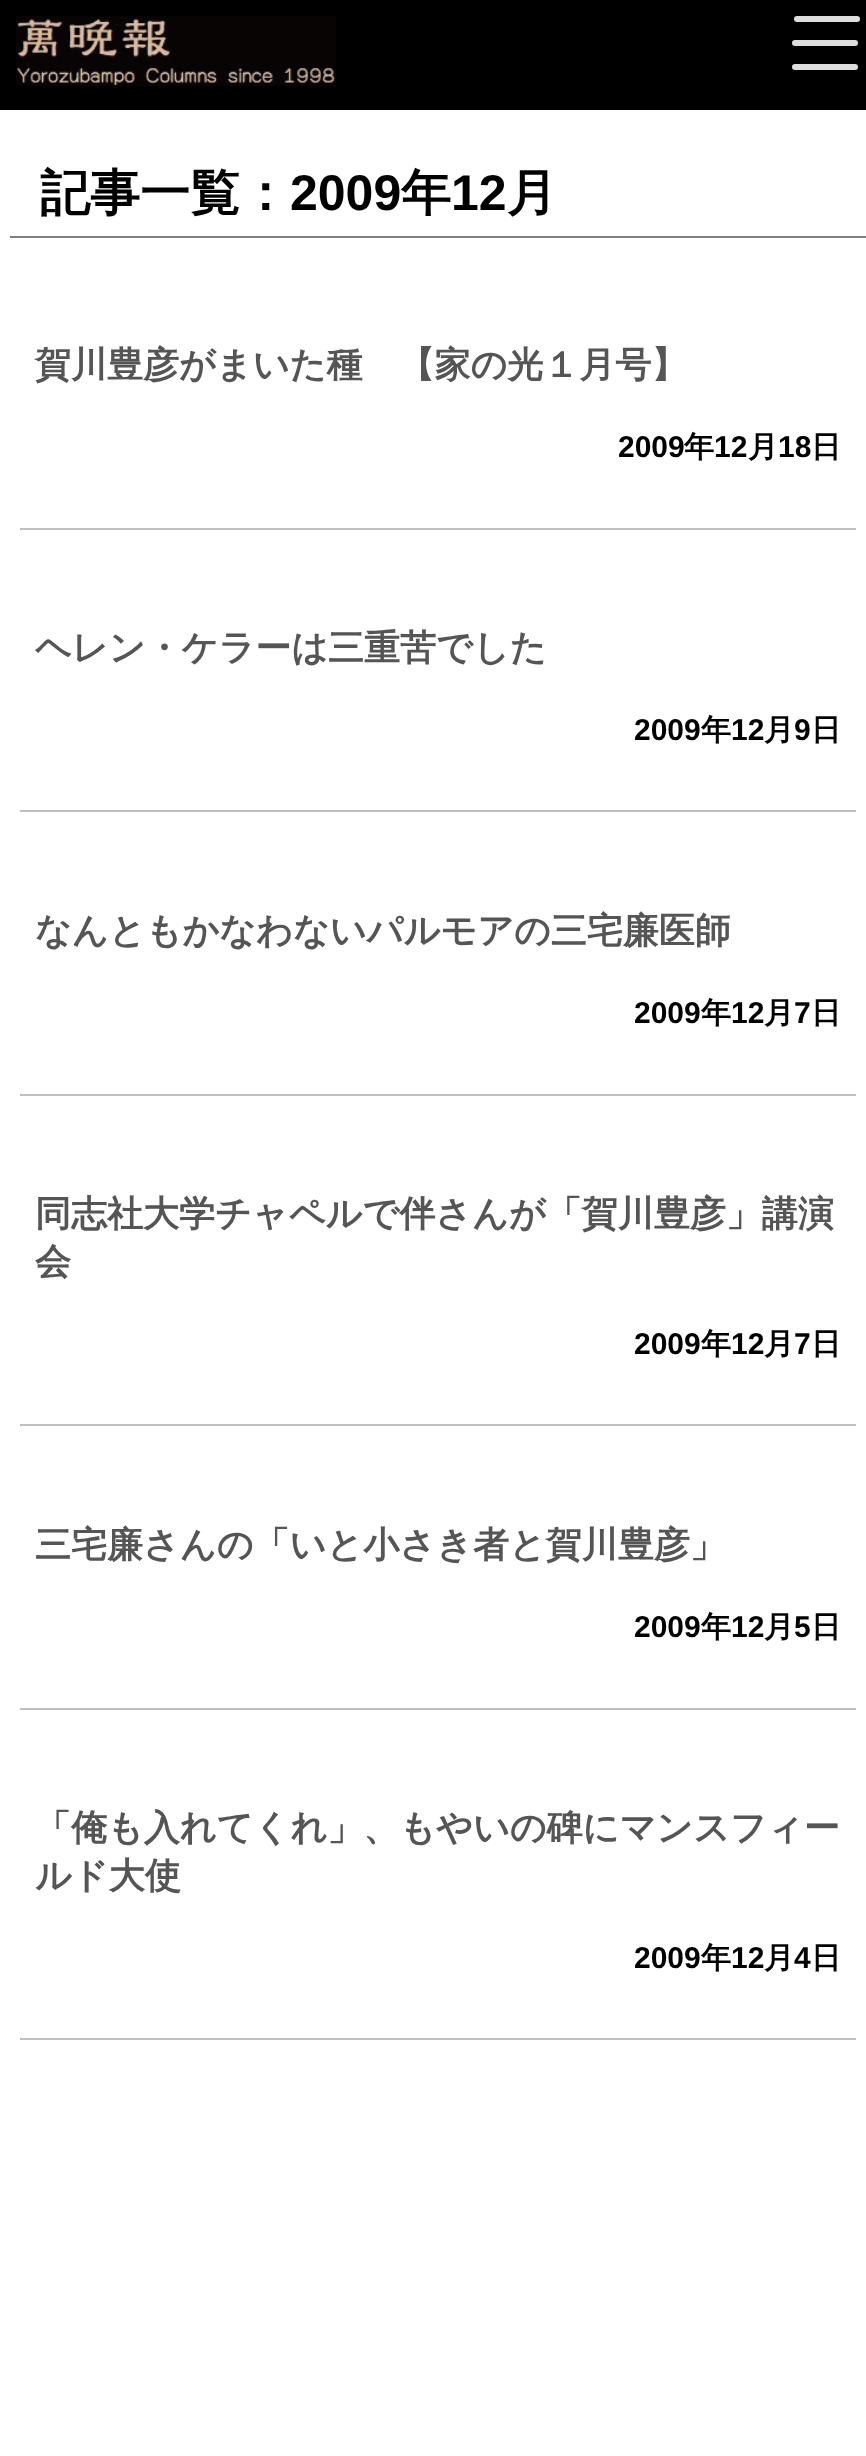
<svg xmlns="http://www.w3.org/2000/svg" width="866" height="2456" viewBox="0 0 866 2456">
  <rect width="100%" height="100%" fill="#fff"/>
  <path d="M0 0h866v110H0z" fill="#000"/>
  <image x="16" y="16" width="320" height="70" href="img/1.png"/>
  <rect x="794" y="16" width="66" height="6" rx="3" fill="#ddd"/>
  <rect x="792" y="40" width="66" height="6" rx="3" fill="#ddd"/>
  <rect x="792" y="64" width="66" height="6" rx="3" fill="#ddd"/>
  <path d="M10 236h856v2H10z" fill="#808080"/>
  <path d="M20 528h836v2H20z" fill="#c0c0c0"/>
  <path d="M20 810h836v2H20z" fill="#c0c0c0"/>
  <path d="M20 1094h836v2H20z" fill="#c0c0c0"/>
  <path d="M20 1424h836v2H20z" fill="#c0c0c0"/>
  <path d="M20 1708h836v2H20z" fill="#c0c0c0"/>
  <path d="M20 2038h836v2H20z" fill="#c0c0c0"/>
  <text x="40" y="210" font-family="WenQuanYi Zen Hei" font-size="50" font-weight="bold" fill="#000">記事一覧：</text>
  <text x="290" y="210" font-family="Liberation Sans" font-size="50" font-weight="bold" fill="#000">2009</text>
  <text x="401" y="210" font-family="WenQuanYi Zen Hei" font-size="50" font-weight="bold" fill="#000">年</text>
  <text x="451" y="210" font-family="Liberation Sans" font-size="50" font-weight="bold" fill="#000">12</text>
  <text x="507" y="210" font-family="WenQuanYi Zen Hei" font-size="50" font-weight="bold" fill="#000">月</text>
  <text x="35" y="377" font-family="WenQuanYi Zen Hei" font-size="36" font-weight="bold" fill="#555">賀川豊彦がまいた種　【家の光１月号】</text>
  <text x="618" y="457" font-family="Liberation Sans" font-size="30" font-weight="bold" fill="#000">2009</text>
  <text x="684" y="457" font-family="WenQuanYi Zen Hei" font-size="30" font-weight="bold" fill="#000">年</text>
  <text x="714" y="457" font-family="Liberation Sans" font-size="30" font-weight="bold" fill="#000">12</text>
  <text x="748" y="457" font-family="WenQuanYi Zen Hei" font-size="30" font-weight="bold" fill="#000">月</text>
  <text x="778" y="457" font-family="Liberation Sans" font-size="30" font-weight="bold" fill="#000">18</text>
  <text x="811" y="457" font-family="WenQuanYi Zen Hei" font-size="30" font-weight="bold" fill="#000">日</text>
  <text x="35" y="660" font-family="WenQuanYi Zen Hei" font-size="36" font-weight="bold" fill="#555">ヘレン・ケラーは三重苦でした</text>
  <text x="634" y="740" font-family="Liberation Sans" font-size="30" font-weight="bold" fill="#000">2009</text>
  <text x="701" y="740" font-family="WenQuanYi Zen Hei" font-size="30" font-weight="bold" fill="#000">年</text>
  <text x="731" y="740" font-family="Liberation Sans" font-size="30" font-weight="bold" fill="#000">12</text>
  <text x="764" y="740" font-family="WenQuanYi Zen Hei" font-size="30" font-weight="bold" fill="#000">月</text>
  <text x="794" y="740" font-family="Liberation Sans" font-size="30" font-weight="bold" fill="#000">9</text>
  <text x="811" y="740" font-family="WenQuanYi Zen Hei" font-size="30" font-weight="bold" fill="#000">日</text>
  <text x="35" y="943" font-family="WenQuanYi Zen Hei" font-size="36" font-weight="bold" fill="#555">なんともかなわないパルモアの三宅廉医師</text>
  <text x="634" y="1023" font-family="Liberation Sans" font-size="30" font-weight="bold" fill="#000">2009</text>
  <text x="701" y="1023" font-family="WenQuanYi Zen Hei" font-size="30" font-weight="bold" fill="#000">年</text>
  <text x="731" y="1023" font-family="Liberation Sans" font-size="30" font-weight="bold" fill="#000">12</text>
  <text x="764" y="1023" font-family="WenQuanYi Zen Hei" font-size="30" font-weight="bold" fill="#000">月</text>
  <text x="794" y="1023" font-family="Liberation Sans" font-size="30" font-weight="bold" fill="#000">7</text>
  <text x="811" y="1023" font-family="WenQuanYi Zen Hei" font-size="30" font-weight="bold" fill="#000">日</text>
  <g font-family="WenQuanYi Zen Hei" font-size="36" font-weight="bold" fill="#555">
    <text x="35" y="1226">同志社大学チャペルで伴さんが「賀川豊彦」講演</text>
    <text x="35" y="1274">会</text>
  </g>
  <text x="634" y="1354" font-family="Liberation Sans" font-size="30" font-weight="bold" fill="#000">2009</text>
  <text x="701" y="1354" font-family="WenQuanYi Zen Hei" font-size="30" font-weight="bold" fill="#000">年</text>
  <text x="731" y="1354" font-family="Liberation Sans" font-size="30" font-weight="bold" fill="#000">12</text>
  <text x="764" y="1354" font-family="WenQuanYi Zen Hei" font-size="30" font-weight="bold" fill="#000">月</text>
  <text x="794" y="1354" font-family="Liberation Sans" font-size="30" font-weight="bold" fill="#000">7</text>
  <text x="811" y="1354" font-family="WenQuanYi Zen Hei" font-size="30" font-weight="bold" fill="#000">日</text>
  <text x="35" y="1557" font-family="WenQuanYi Zen Hei" font-size="36" font-weight="bold" fill="#555">三宅廉さんの「いと小さき者と賀川豊彦」</text>
  <text x="634" y="1637" font-family="Liberation Sans" font-size="30" font-weight="bold" fill="#000">2009</text>
  <text x="701" y="1637" font-family="WenQuanYi Zen Hei" font-size="30" font-weight="bold" fill="#000">年</text>
  <text x="731" y="1637" font-family="Liberation Sans" font-size="30" font-weight="bold" fill="#000">12</text>
  <text x="764" y="1637" font-family="WenQuanYi Zen Hei" font-size="30" font-weight="bold" fill="#000">月</text>
  <text x="794" y="1637" font-family="Liberation Sans" font-size="30" font-weight="bold" fill="#000">5</text>
  <text x="811" y="1637" font-family="WenQuanYi Zen Hei" font-size="30" font-weight="bold" fill="#000">日</text>
  <g font-family="WenQuanYi Zen Hei" font-size="36" font-weight="bold" fill="#555">
    <text x="35" y="1840">「俺も入れてくれ」、もやいの碑にマンスフィー</text>
    <text x="35" y="1888">ルド大使</text>
  </g>
  <text x="634" y="1968" font-family="Liberation Sans" font-size="30" font-weight="bold" fill="#000">2009</text>
  <text x="701" y="1968" font-family="WenQuanYi Zen Hei" font-size="30" font-weight="bold" fill="#000">年</text>
  <text x="731" y="1968" font-family="Liberation Sans" font-size="30" font-weight="bold" fill="#000">12</text>
  <text x="764" y="1968" font-family="WenQuanYi Zen Hei" font-size="30" font-weight="bold" fill="#000">月</text>
  <text x="794" y="1968" font-family="Liberation Sans" font-size="30" font-weight="bold" fill="#000">4</text>
  <text x="811" y="1968" font-family="WenQuanYi Zen Hei" font-size="30" font-weight="bold" fill="#000">日</text>
</svg>
